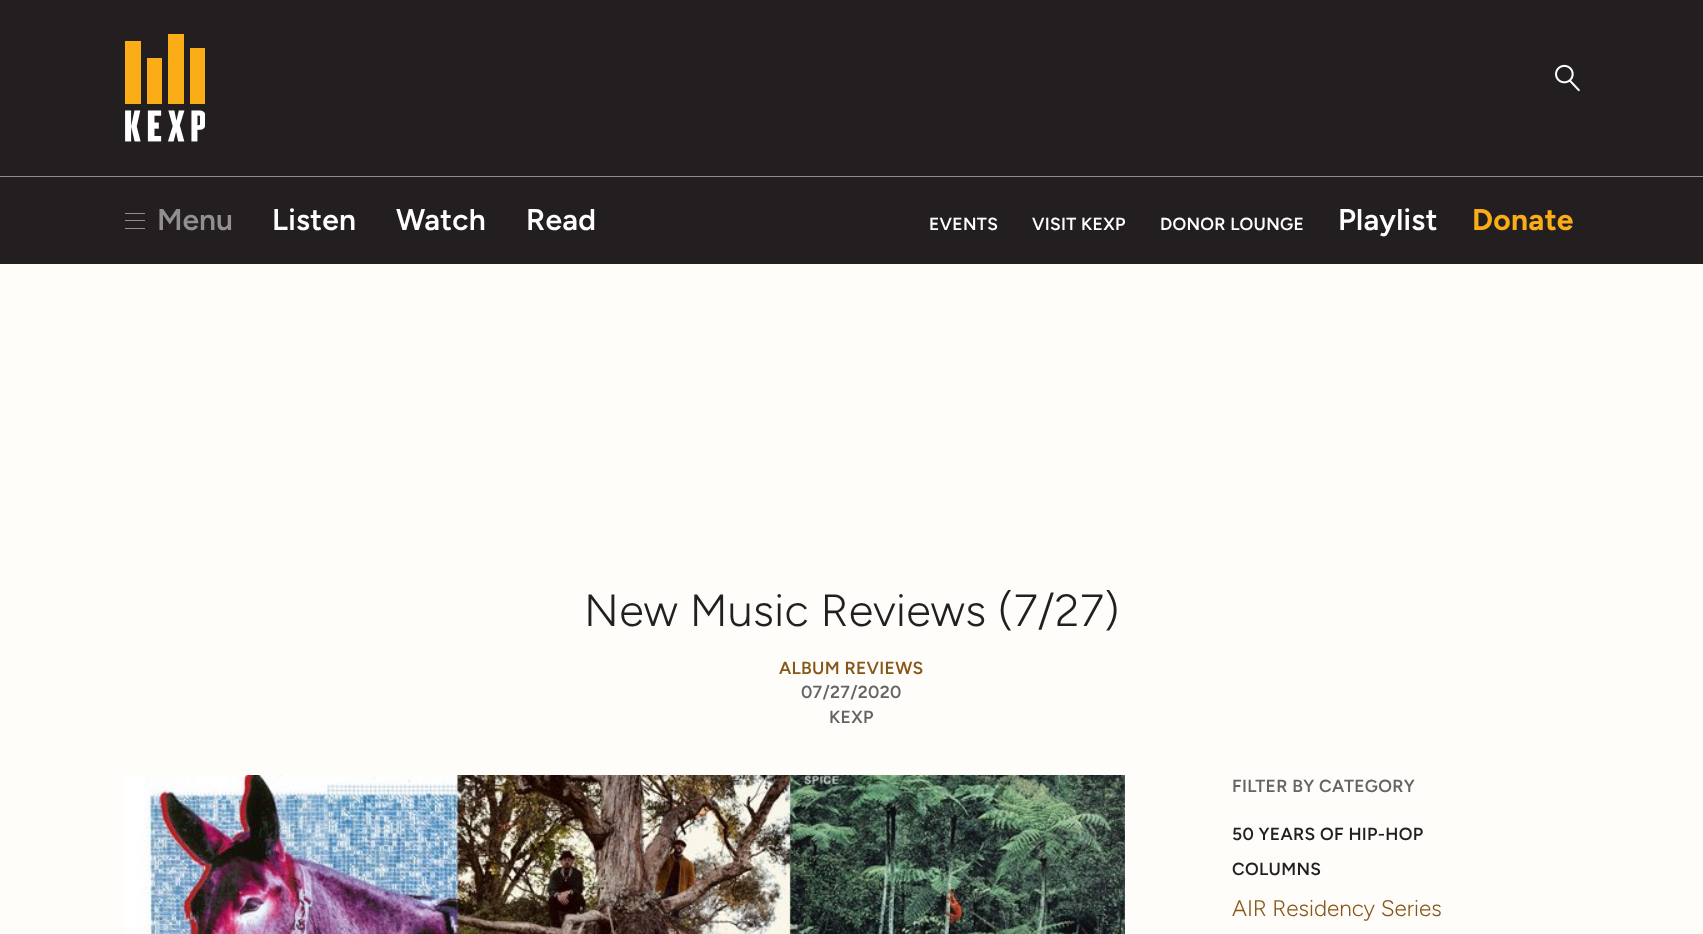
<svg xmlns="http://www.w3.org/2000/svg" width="1703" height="934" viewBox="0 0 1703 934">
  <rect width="100%" height="100%" fill="#fefdfa"/>
  <path d="M0 0h1703v264H0z" fill="#231f20"/>
  <path d="M0 176h1703v1H0z" fill="#8e8e8e"/>
  <image x="125" y="34" width="80" height="108" href="img/1.png"/>
  <image x="1555" y="64" width="25" height="28" href="img/2.png"/>
  <path d="M125 220h20v1H125z" fill="#918f90"/>
  <path d="M125 213h20v1H125z" fill="#918f90"/>
  <path d="M125 228h20v1H125z" fill="#918f90"/>
  <image x="125" y="775" width="1000" height="159" href="img/3.png"/>
  <text x="157" y="230" font-family="Figtree" font-size="30" font-weight="600" fill="#918f90">Menu</text>
  <g font-family="Figtree" font-size="30" font-weight="600" letter-spacing="0.3" fill="#fff">
    <text x="272" y="230">Listen</text>
    <text x="396" y="230">Watch</text>
    <text x="526" y="230">Read</text>
  </g>
  <g font-family="Figtree" font-size="17.5" font-weight="600" letter-spacing="0.3" fill="#fff">
    <text x="929" y="230">EVENTS</text>
    <text x="1032" y="230">VISIT KEXP</text>
    <text x="1160" y="230">DONOR LOUNGE</text>
  </g>
  <text x="1338" y="230" font-family="Figtree" font-size="30" font-weight="600" letter-spacing="0.3" fill="#fff">Playlist</text>
  <text x="1472" y="230" font-family="Figtree" font-size="30" font-weight="bold" letter-spacing="0.3" fill="#fbad18">Donate</text>
  <text x="584" y="626" font-family="Figtree" font-size="45" font-weight="300" letter-spacing="0.3" fill="#231f20">New Music Reviews (7/27)</text>
  <text x="779" y="674" font-family="Figtree" font-size="17.5" font-weight="600" letter-spacing="0.3" fill="#875719">ALBUM REVIEWS</text>
  <g font-family="Figtree" font-size="17.5" font-weight="600" letter-spacing="0.3" fill="#646464">
    <text x="801" y="698">07/27/2020</text>
    <text x="829" y="723">KEXP</text>
    <text x="1232" y="792">FILTER BY CATEGORY</text>
  </g>
  <g font-family="Figtree" font-size="17.5" font-weight="600" letter-spacing="0.3" fill="#231f20">
    <text x="1232" y="840">50 YEARS OF HIP-HOP</text>
    <text x="1232" y="875">COLUMNS</text>
  </g>
  <text x="1232" y="916" font-family="Figtree" font-size="22.5" font-weight="300" fill="#875719">AIR Residency Series</text>
</svg>
